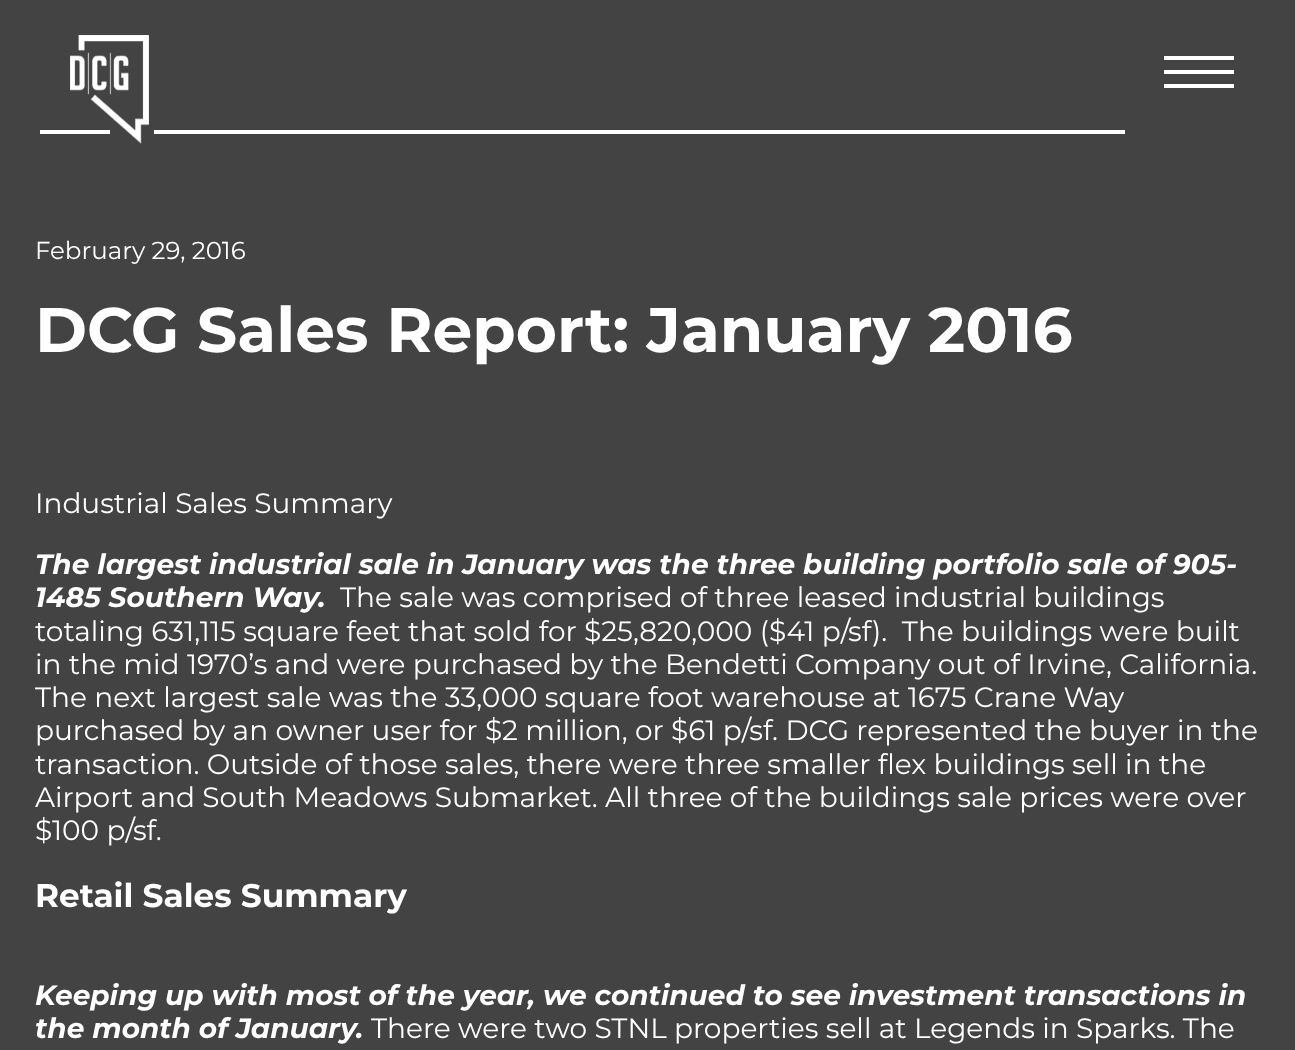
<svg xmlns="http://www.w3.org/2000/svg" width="1295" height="1050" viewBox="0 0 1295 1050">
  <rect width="100%" height="100%" fill="#434343"/>
  <path d="M40 130h70v4H40z" fill="#fff"/>
  <image x="70" y="35" width="79" height="109" href="img/1.png"/>
  <path d="M154 130h971v4H154z" fill="#fff"/>
  <path d="M1164 70h70v4H1164z" fill="#fff"/>
  <path d="M1164 56h70v4H1164z" fill="#fff"/>
  <path d="M1164 84h70v4H1164z" fill="#fff"/>
  <text x="35" y="259" font-family="Montserrat" font-size="24.5" fill="#fff">February 29, 2016</text>
  <text x="35" y="352" font-family="Montserrat" font-size="63" font-weight="bold" fill="#fff">DCG Sales Report: January 2016</text>
  <text x="35" y="513" font-family="Montserrat" font-size="28" fill="#fff">Industrial Sales Summary</text>
  <g font-family="Montserrat" font-size="28" font-weight="bold" font-style="italic" fill="#fff">
    <text x="35" y="574">The largest industrial sale in January was the three building portfolio sale of 905-</text>
    <text x="35" y="607">1485 Southern Way.</text>
  </g>
  <g font-family="Montserrat" font-size="28" fill="#fff">
    <text x="340" y="607">The sale was comprised of three leased industrial buildings</text>
    <text x="35" y="641" xml:space="preserve">totaling 631,115 square feet that sold for $25,820,000 ($41 p/sf).  The buildings were built</text>
    <text x="35" y="674">in the mid 1970’s and were purchased by the Bendetti Company out of Irvine, California.</text>
    <text x="35" y="707">The next largest sale was the 33,000 square foot warehouse at 1675 Crane Way</text>
    <text x="35" y="740">purchased by an owner user for $2 million, or $61 p/sf. DCG represented the buyer in the</text>
    <text x="35" y="774">transaction. Outside of those sales, there were three smaller flex buildings sell in the</text>
    <text x="35" y="807">Airport and South Meadows Submarket. All three of the buildings sale prices were over</text>
    <text x="35" y="840">$100 p/sf.</text>
  </g>
  <text x="35" y="907" font-family="Montserrat" font-size="32.75" font-weight="bold" fill="#fff">Retail Sales Summary</text>
  <g font-family="Montserrat" font-size="28" font-weight="bold" font-style="italic" fill="#fff">
    <text x="35" y="1005">Keeping up with most of the year, we continued to see investment transactions in</text>
    <text x="35" y="1038">the month of January.</text>
  </g>
  <text x="371" y="1038" font-family="Montserrat" font-size="28" fill="#fff">There were two STNL properties sell at Legends in Sparks. The</text>
</svg>
